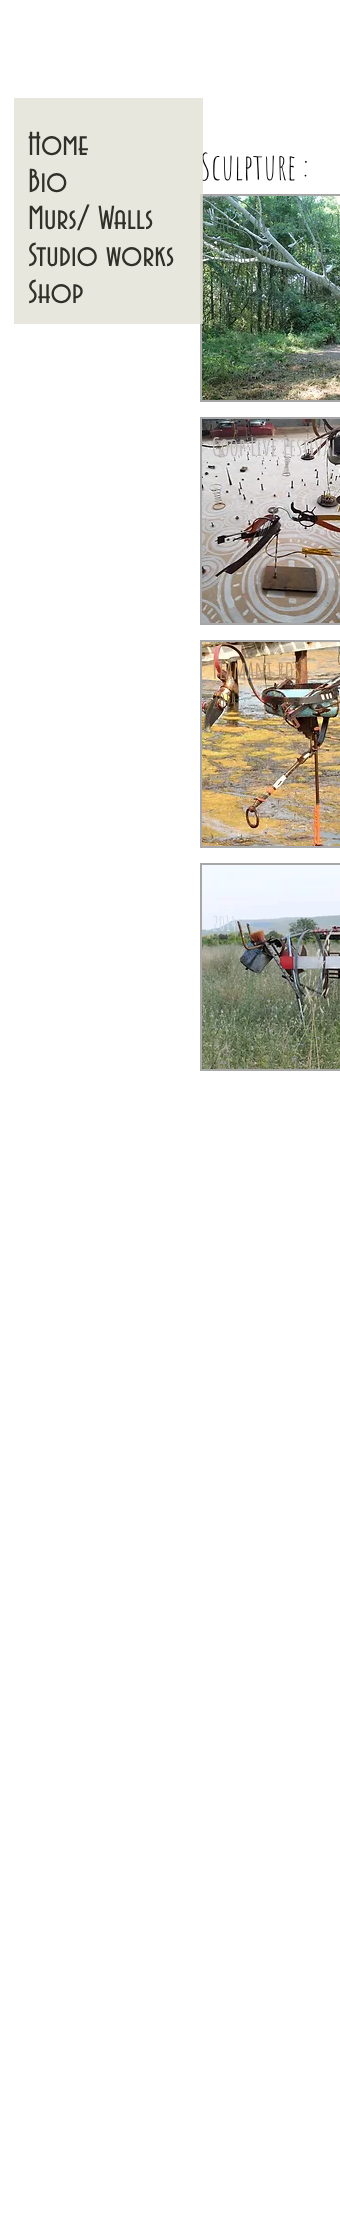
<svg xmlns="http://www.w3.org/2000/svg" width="340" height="2238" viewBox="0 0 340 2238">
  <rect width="100%" height="100%" fill="#fff"/>
  <path d="M200 194h140v208H200z" fill="#a7a7a7"/>
  <image x="202" y="196" width="138" height="204" href="img/1.png"/>
  <path d="M200 417h140v208H200z" fill="#a7a7a7"/>
  <image x="202" y="419" width="138" height="204" href="img/2.png"/>
  <path d="M200 640h140v208H200z" fill="#a7a7a7"/>
  <image x="202" y="642" width="138" height="204" href="img/3.png"/>
  <path d="M200 863h140v208H200z" fill="#a7a7a7"/>
  <image x="202" y="865" width="138" height="204" href="img/4.png"/>
  <text x="200" y="180" font-family="Amatic SC" font-size="36" fill="#050505">Sculpture :</text>
  <path d="M14 98h189v226H14z" fill="#e0dfd2c2"/>
  <g font-family="'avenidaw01'" font-size="35" fill="#30302a">
    <text x="28" y="303">Shop</text>
    <text x="28" y="266">Studio works</text>
    <text x="28" y="229">Murs/ Walls</text>
    <text x="28" y="192">Bio</text>
    <text x="28" y="155">Home</text>
  </g>
  <text x="212" y="233" font-family="Amatic SC" font-size="25" font-weight="bold" fill="#577b67">Lac d'Attuech 2021</text>
  <text x="212" y="262" font-family="Amatic SC" font-size="20" font-weight="bold" fill="#728578">Installation</text>
  <text x="212" y="290" font-family="Amatic SC" font-size="20" font-weight="bold" fill="#5a7061">Sculptures : renard et</text>
  <text x="212" y="456" font-family="Amatic SC" font-size="25" font-weight="bold" fill="#beb9b8">Coop Live Festival</text>
  <text x="212" y="679" font-family="Amatic SC" font-size="25" font-weight="bold" fill="#ba9570">Flamant rose</text>
  <text x="212" y="708" font-family="Amatic SC" font-size="20" font-weight="bold" fill="#8e795f">2014</text>
  <text x="212" y="931" font-family="Amatic SC" font-size="20" font-weight="bold" fill="#d4dee9">2014</text>
</svg>
